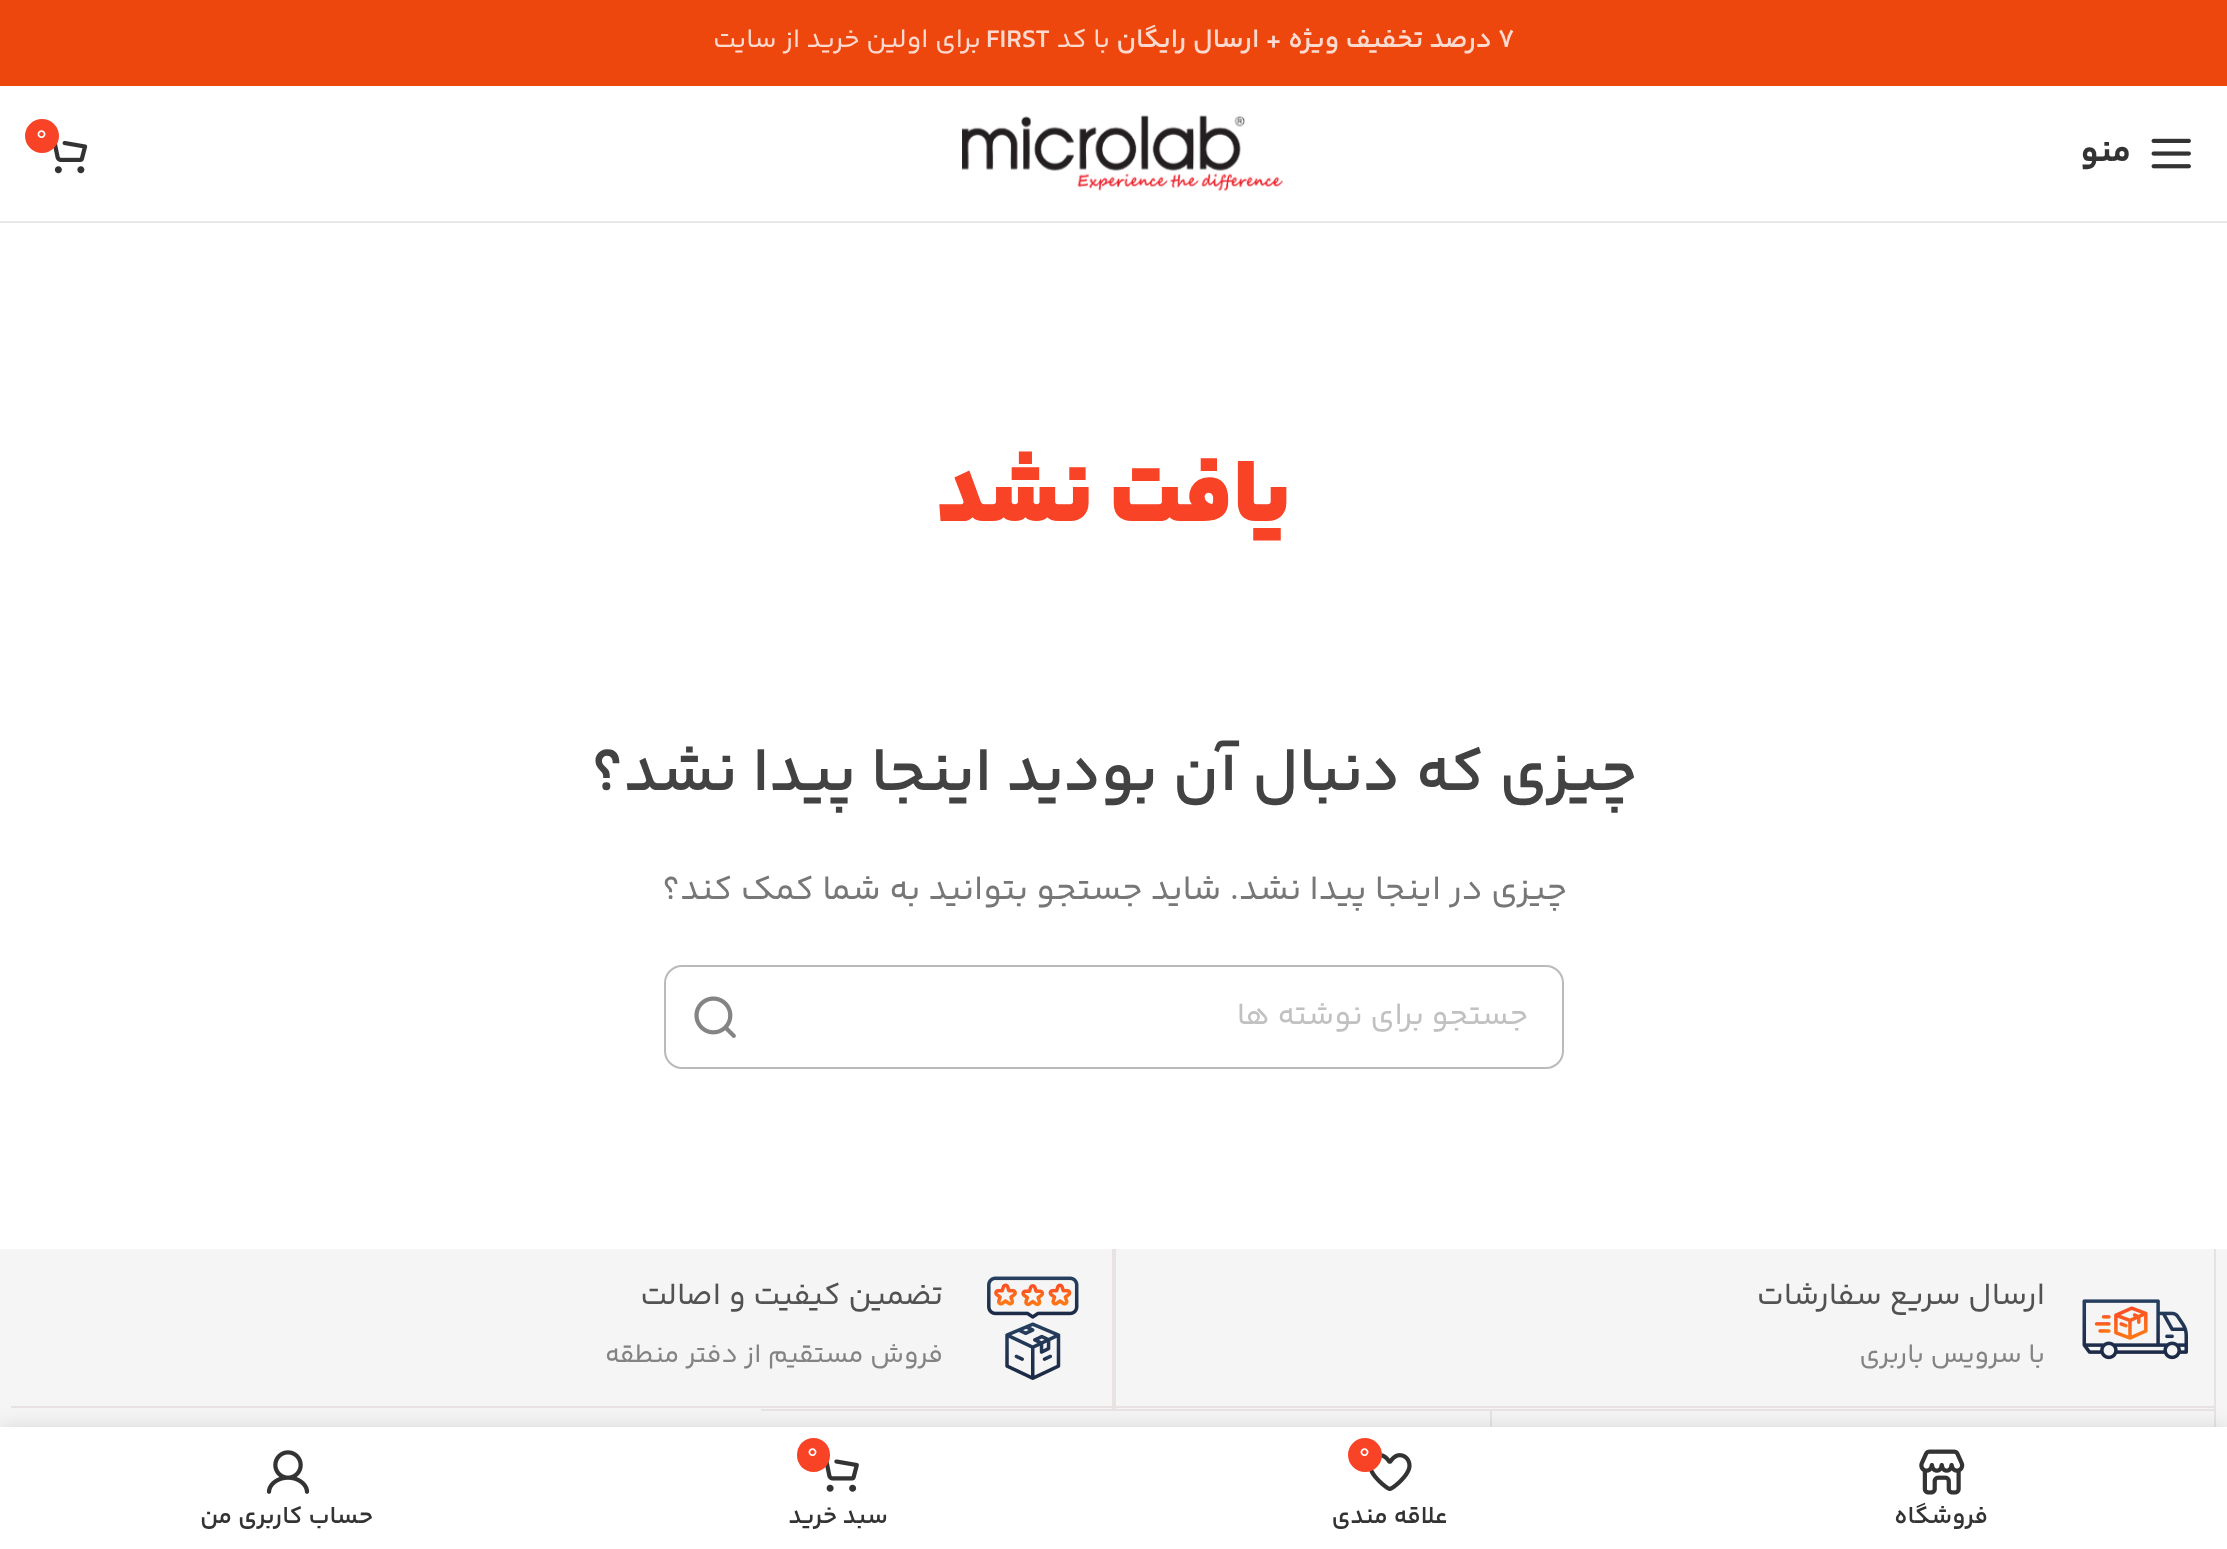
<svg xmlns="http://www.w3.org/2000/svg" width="2227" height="1549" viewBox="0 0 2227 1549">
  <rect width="100%" height="100%" fill="#fff"/>
  <path d="M0 0h2227v86H0z" fill="#ee470e"/>
  <path d="M0 221h2227v2H0z" fill="#e8e8e8"/>
  <image x="962" y="115" width="321" height="76" href="img/1.png"/>
  <image x="53" y="140" width="35" height="34" href="img/2.png"/>
  <circle cx="42" cy="136" r="17" fill="#f94327"/>
  <image x="2151" y="138" width="40" height="31" href="img/3.png"/>
  <rect x="665" y="966" width="898" height="102" rx="17" fill="none" stroke="#bababa" stroke-width="2"/>
  <image x="694" y="996" width="42" height="42" href="img/4.png"/>
  <path d="M0 1249h2227v178H0z" fill="#f5f5f5"/>
  <path d="M2214 1249h2v160H2214z" fill="#e8e2e2"/>
  <path d="M1114 1406h1102v2H1114z" fill="#e8e2e2"/>
  <path d="M1112 1249h4v160H1112z" fill="#e8e2e2"/>
  <image x="2082" y="1299" width="106" height="61" href="img/5.png"/>
  <path d="M11 1406h1103v2H11z" fill="#e8e2e2"/>
  <image x="987" y="1276" width="92" height="104" href="img/6.png"/>
  <path d="M1491 1410h724v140H1491z" fill="none" stroke="#e8e2e2" stroke-width="2"/>
  <path d="M761 1409h729v2H761z" fill="#e8e2e2"/>
  <path d="M0 1427h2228v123H0z" fill="#0000001f" filter="blur(10px)"/>
  <path d="M0 1427h2227v122H0z" fill="#fff"/>
  <image x="1919" y="1449" width="46" height="46" href="img/7.png"/>
  <image x="1369" y="1453" width="43" height="38" href="img/8.png"/>
  <circle cx="1365" cy="1455" r="17" fill="#f94327"/>
  <image x="825" y="1459" width="34" height="33" href="img/9.png"/>
  <rect x="797" y="1438" width="33" height="34" rx="16.5" fill="#f94327"/>
  <image x="266" y="1450" width="44" height="44" href="img/10.png"/>
  <text x="1498" y="47" font-family="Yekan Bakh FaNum" font-size="27" font-weight="600" fill="#fcdacf">7</text>
  <text x="1492" y="47" font-family="Yekan Bakh FaNum" font-size="27" font-weight="600" direction="rtl" fill="#fcdacf">درصد تخفیف ویژه + ارسال رایگان</text>
  <text x="1110" y="47" font-family="Yekan Bakh FaNum" font-size="27" direction="rtl" fill="#fcdacf">با کد</text>
  <text x="986" y="47" font-family="Yekan Bakh FaNum" font-size="27" font-weight="600" fill="#fcdacf">FIRST</text>
  <text x="981" y="47" font-family="Yekan Bakh FaNum" font-size="27" direction="rtl" fill="#fcdacf">برای اولین خرید از سایت</text>
  <text x="36" y="140" font-family="Yekan Bakh FaNum" font-size="20" fill="#fff">0</text>
  <text x="2131" y="161" font-family="Yekan Bakh FaNum" font-size="34" font-weight="bold" direction="rtl" fill="#333">منو</text>
  <text x="1291" y="521" font-family="Yekan Bakh FaNum" font-size="93.5" font-weight="900" direction="rtl" fill="#f94327">یافت نشد</text>
  <text x="1637" y="790" font-family="Yekan Bakh FaNum" font-size="63" font-weight="600" direction="rtl" fill="#424242">چیزی که دنبال آن بودید اینجا پیدا نشد؟</text>
  <text x="1567" y="899" font-family="Yekan Bakh FaNum" font-size="34.65" direction="rtl" fill="#777">چیزی در اینجا پیدا نشد. شاید جستجو بتوانید به شما کمک کند؟</text>
  <text x="1528" y="1024" font-family="Yekan Bakh FaNum" font-size="31.5" direction="rtl" fill="#c1c1c1">جستجو برای نوشته ها</text>
  <text x="2045" y="1304" font-family="Yekan Bakh FaNum" font-size="31.5" direction="rtl" fill="#525252">ارسال سریع سفارشات</text>
  <text x="2045" y="1362" font-family="Yekan Bakh FaNum" font-size="27" direction="rtl" fill="#838383">با سرویس باربری</text>
  <text x="943" y="1304" font-family="Yekan Bakh FaNum" font-size="31.5" direction="rtl" fill="#525252">تضمین کیفیت و اصالت</text>
  <text x="943" y="1362" font-family="Yekan Bakh FaNum" font-size="27" direction="rtl" fill="#838383">فروش مستقیم از دفتر منطقه</text>
  <text x="1988" y="1523" font-family="Yekan Bakh FaNum" font-size="24.75" font-weight="600" direction="rtl" fill="#333">فروشگاه</text>
  <text x="1359" y="1458" font-family="Yekan Bakh FaNum" font-size="20" fill="#fff">0</text>
  <text x="1448" y="1523" font-family="Yekan Bakh FaNum" font-size="24.75" font-weight="600" direction="rtl" fill="#333">علاقه مندی</text>
  <text x="807" y="1458" font-family="Yekan Bakh FaNum" font-size="20" fill="#fff">0</text>
  <g font-family="Yekan Bakh FaNum" font-size="24.75" font-weight="600" direction="rtl" fill="#333">
    <text x="888" y="1523">سبد خرید</text>
    <text x="373" y="1523">حساب کاربری من</text>
  </g>
</svg>
